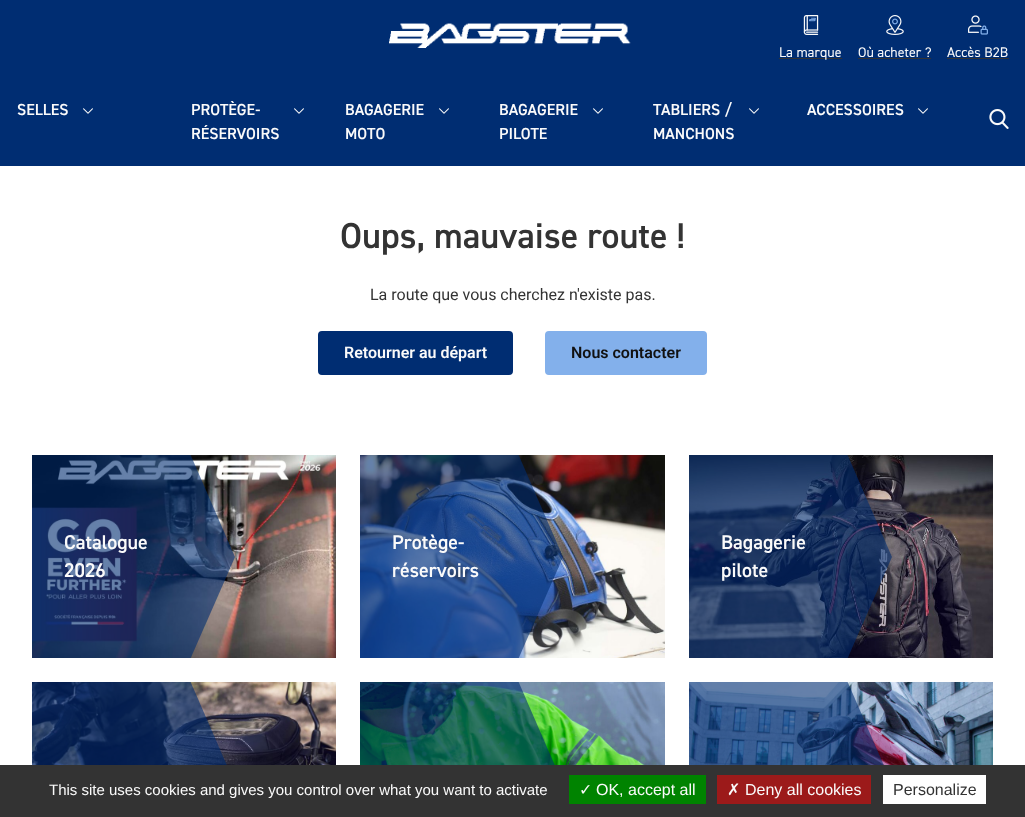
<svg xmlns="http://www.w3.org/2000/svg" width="1025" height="817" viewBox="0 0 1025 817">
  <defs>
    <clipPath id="clip1"><path d="M32 455h203v203H32z"/></clipPath>
    <clipPath id="clip2"><path d="M360 455h203v203H360z"/></clipPath>
    <clipPath id="clip3"><path d="M689 455h203v203H689z"/></clipPath>
    <clipPath id="clip4"><path d="M32 682h203v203H32z"/></clipPath>
    <clipPath id="clip5"><path d="M360 682h203v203H360z"/></clipPath>
    <clipPath id="clip6"><path d="M689 682h203v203H689z"/></clipPath>
  </defs>
  <rect width="100%" height="100%" fill="#fff"/>
  <path d="M0 0h1025v166H0z" fill="#002d72"/>
  <image x="389" y="23" width="242" height="25" href="img/1.png"/>
  <image x="803" y="15" width="16" height="20" href="img/2.png"/>
  <path d="M779 58h63v1H779z" fill="#333"/>
  <image x="886" y="15" width="18" height="20" href="img/3.png"/>
  <path d="M858 58h73v1H858z" fill="#333"/>
  <image x="968" y="15" width="20" height="20" href="img/4.png"/>
  <path d="M947 58h62v1H947z" fill="#333"/>
  <image x="83" y="108" width="10" height="6" href="img/5.png"/>
  <image x="294" y="108" width="10" height="6" href="img/5.png"/>
  <image x="439" y="108" width="10" height="6" href="img/5.png"/>
  <image x="593" y="108" width="10" height="6" href="img/5.png"/>
  <image x="749" y="108" width="10" height="6" href="img/5.png"/>
  <image x="918" y="108" width="10" height="6" href="img/5.png"/>
  <image x="989" y="109" width="20" height="20" href="img/6.png"/>
  <rect x="319" y="332" width="193" height="42" rx="3" fill="#002d72" stroke="#002d72" stroke-width="2"/>
  <rect x="546" y="332" width="160" height="42" rx="3" fill="#83b0eb" stroke="#83b0eb" stroke-width="2"/>
  <image x="32" y="455" width="304" height="203" href="img/7.png"/>
  <g clip-path="url(#clip1)">
    <path d="M235 557L175 419L32 418V694H175Z" fill="#002d7299"/>
  </g>
  <image x="360" y="455" width="305" height="203" href="img/8.png"/>
  <g clip-path="url(#clip2)">
    <path d="M563 557L503 419L360 418V694H503Z" fill="#002d7299"/>
  </g>
  <image x="689" y="455" width="304" height="203" href="img/9.png"/>
  <g clip-path="url(#clip3)">
    <path d="M892 557L832 419L689 418V694H832Z" fill="#002d7299"/>
  </g>
  <image x="32" y="682" width="304" height="83" href="img/10.png"/>
  <g clip-path="url(#clip4)">
    <path d="M235 784L175 646L32 645V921H175Z" fill="#002d7299"/>
  </g>
  <image x="360" y="682" width="305" height="83" href="img/11.png"/>
  <g clip-path="url(#clip5)">
    <path d="M563 784L503 646L360 645V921H503Z" fill="#002d7299"/>
  </g>
  <image x="689" y="682" width="304" height="83" href="img/12.png"/>
  <g clip-path="url(#clip6)">
    <path d="M892 784L832 646L689 645V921H832Z" fill="#002d7299"/>
  </g>
  <path d="M0 765h1025v52H0z" fill="#333"/>
  <path d="M569 775h137v29H569z" fill="#008300"/>
  <path d="M717 775h154v29H717z" fill="#9c1a1a"/>
  <path d="M883 775h103v29H883z" fill="#fff"/>
  <g font-family="'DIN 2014'" font-size="14" fill="#fafafa">
    <text x="779" y="57">La marque</text>
    <text x="858" y="57">Où acheter ?</text>
    <text x="947" y="57">Accès B2B</text>
  </g>
  <g font-family="'DIN 2014'" font-size="16" font-weight="600" fill="#fafafa">
    <text x="17" y="115">SELLES</text>
    <text x="191" y="115">PROTÈGE-</text>
    <text x="191" y="139">RÉSERVOIRS</text>
    <text x="345" y="115">BAGAGERIE</text>
    <text x="345" y="139">MOTO</text>
    <text x="499" y="115">BAGAGERIE</text>
    <text x="499" y="139">PILOTE</text>
    <text x="653" y="115">TABLIERS /</text>
    <text x="653" y="139">MANCHONS</text>
    <text x="807" y="115">ACCESSOIRES</text>
  </g>
  <text x="340" y="248" font-family="'DIN 2014'" font-size="36" font-weight="600" fill="#333">Oups, mauvaise route !</text>
  <text x="370" y="300" font-family="Roboto" font-size="16" fill="#333">La route que vous cherchez n'existe pas.</text>
  <text x="344" y="358" font-family="Roboto" font-size="16" font-weight="600" fill="#fafafa">Retourner au départ</text>
  <text x="571" y="358" font-family="Roboto" font-size="16" font-weight="600" fill="#111">Nous contacter</text>
  <g font-family="'DIN 2014'" font-size="20" font-weight="600" fill="#fafafa">
    <text x="64" y="549">Catalogue</text>
    <text x="64" y="577">2026</text>
    <text x="392" y="549">Protège-</text>
    <text x="392" y="577">réservoirs</text>
    <text x="721" y="549">Bagagerie</text>
    <text x="721" y="577">pilote</text>
  </g>
  <text x="49" y="795" font-family="Liberation Sans" font-size="15" fill="#fafafa">This site uses cookies and gives you control over what you want to activate</text>
  <text x="579" y="795" font-family="DejaVu Sans" font-size="16" fill="#fafafa">✓</text>
  <text x="596" y="795" font-family="Liberation Sans" font-size="16" fill="#fafafa">OK, accept all</text>
  <text x="727" y="795" font-family="DejaVu Sans" font-size="16" fill="#fafafa">✗</text>
  <text x="745" y="795" font-family="Liberation Sans" font-size="16" fill="#fafafa">Deny all cookies</text>
  <text x="893" y="795" font-family="Liberation Sans" font-size="16" fill="#333">Personalize</text>
</svg>
